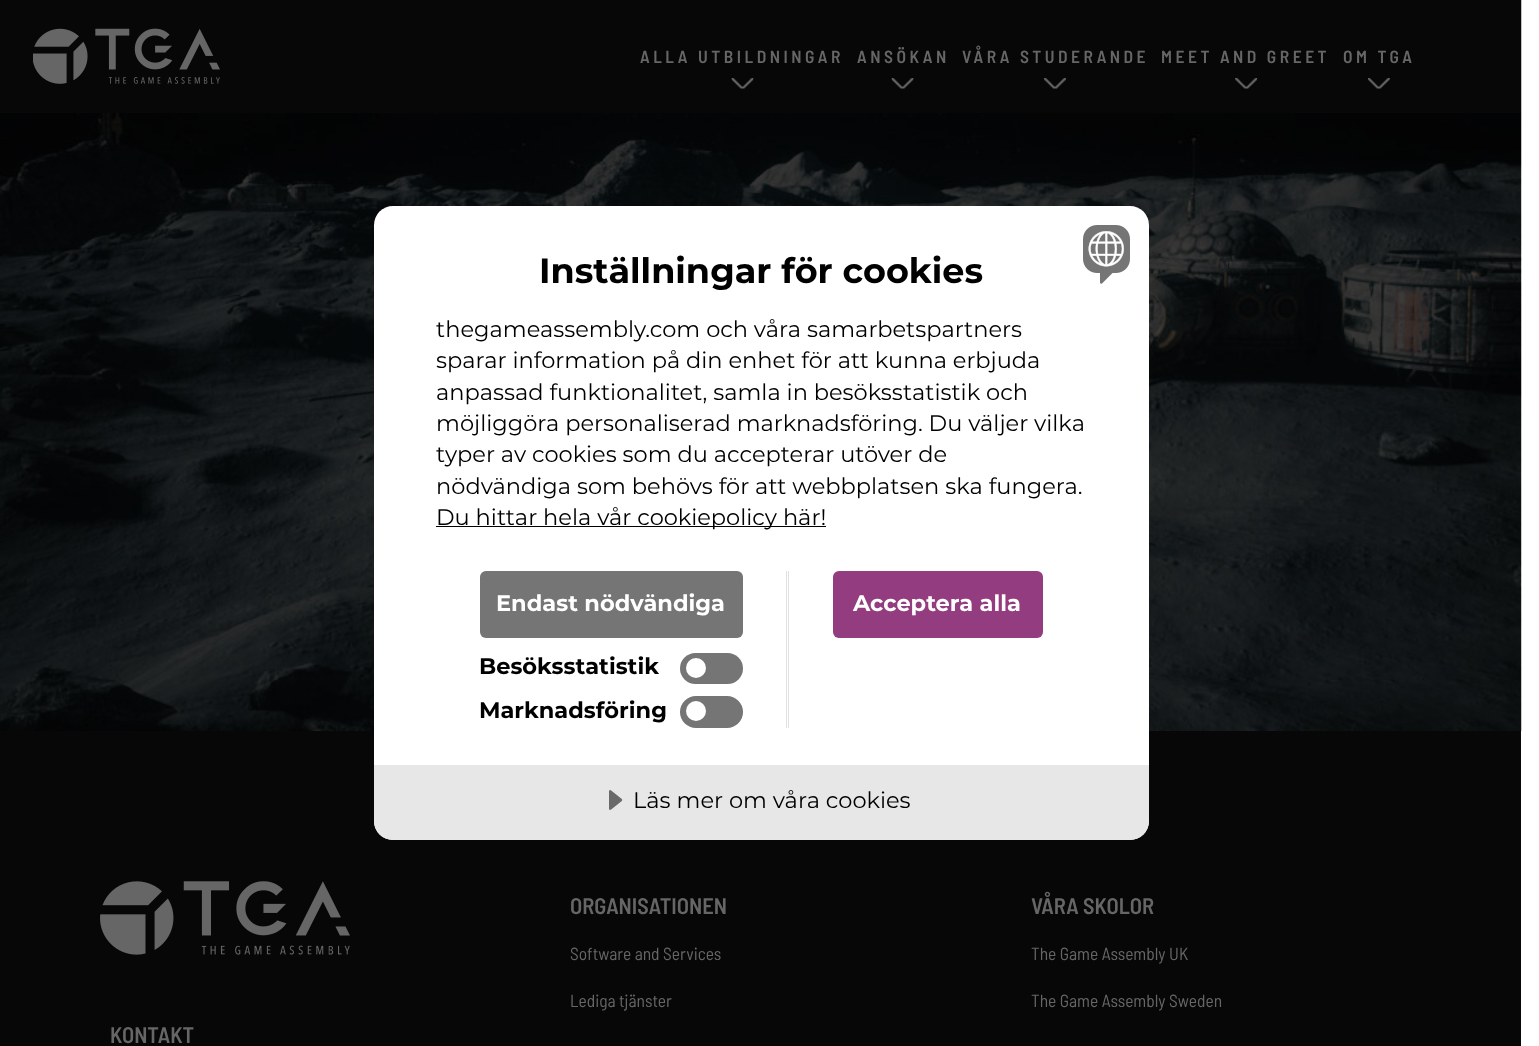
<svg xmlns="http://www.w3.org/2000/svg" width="1539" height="1046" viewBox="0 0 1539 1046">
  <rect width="100%" height="100%" fill="#fff"/>
  <image x="0" y="0" width="1522" height="731" href="img/1.png"/>
  <path d="M0 0h1521v113H0z" fill="#070707"/>
  <image x="33" y="28" width="187" height="56" href="img/2.png"/>
  <image x="731" y="78" width="23" height="11" href="img/3.png"/>
  <image x="891" y="78" width="23" height="11" href="img/4.png"/>
  <image x="1044" y="78" width="22" height="11" href="img/5.png"/>
  <image x="1235" y="78" width="23" height="11" href="img/6.png"/>
  <image x="1368" y="78" width="22" height="11" href="img/7.png"/>
  <path d="M0 731h1521v315H0z" fill="#070707"/>
  <image x="100" y="881" width="250" height="74" href="img/8.png"/>
  <rect x="374" y="206" width="775" height="634" rx="19" fill="#fff"/>
  <path d="M436 526h390v1H436z" fill="#000"/>
  <path d="M786 571h1v157H786z" fill="#e0e0e0"/>
  <rect x="480" y="571" width="263" height="67" rx="6" fill="#757575"/>
  <rect x="680" y="653" width="63" height="31" rx="15.5" fill="#757575"/>
  <circle cx="696" cy="668" r="10" fill="#fff"/>
  <rect x="680" y="696" width="63" height="32" rx="16" fill="#757575"/>
  <circle cx="696" cy="711" r="10" fill="#fff"/>
  <path d="M788 571h1v157H788z" fill="#e0e0e0"/>
  <rect x="833" y="571" width="210" height="67" rx="6" fill="#933c80"/>
  <image x="1083" y="225" width="47" height="59" href="img/9.png"/>
  <path d="M374 765H1149V821C1149 831.5 1140.5 840 1130 840H393C382.5 840 374 831.5 374 821Z" fill="#e7e7e7"/>
  <image x="609" y="790" width="14" height="20" href="img/10.png"/>
  <g font-family="Barlow Semi Condensed" font-size="17.5" font-weight="600" letter-spacing="3.5" fill="#666">
    <text x="640" y="63">ALLA UTBILDNINGAR</text>
    <text x="857" y="63">ANSÖKAN</text>
    <text x="962" y="63">VÅRA STUDERANDE</text>
    <text x="1161" y="63">MEET AND GREET</text>
    <text x="1343" y="63">OM TGA</text>
  </g>
  <text x="570" y="914" font-family="Barlow Semi Condensed" font-size="22.5" font-weight="600" fill="#666">ORGANISATIONEN</text>
  <g font-family="Barlow Semi Condensed" font-size="17.5" fill="#666">
    <text x="570" y="960">Software and Services</text>
    <text x="570" y="1007">Lediga tjänster</text>
  </g>
  <text x="1031" y="914" font-family="Barlow Semi Condensed" font-size="22.5" font-weight="600" fill="#666">VÅRA SKOLOR</text>
  <g font-family="Barlow Semi Condensed" font-size="17.5" fill="#666">
    <text x="1031" y="960">The Game Assembly UK</text>
    <text x="1031" y="1007">The Game Assembly Sweden</text>
  </g>
  <text x="110" y="1043" font-family="Barlow Semi Condensed" font-size="22.5" font-weight="600" fill="#666">KONTAKT</text>
  <text x="539" y="283" font-family="Montserrat" font-size="35" font-weight="bold" fill="#000">Inställningar för cookies</text>
  <g font-family="Montserrat" font-size="22.5" fill="#000">
    <text x="436" y="337">thegameassembly.com och våra samarbetspartners</text>
    <text x="436" y="368">sparar information på din enhet för att kunna erbjuda</text>
    <text x="436" y="400">anpassad funktionalitet, samla in besöksstatistik och</text>
    <text x="436" y="431">möjliggöra personaliserad marknadsföring. Du väljer vilka</text>
    <text x="436" y="462">typer av cookies som du accepterar utöver de</text>
    <text x="436" y="494">nödvändiga som behövs för att webbplatsen ska fungera.</text>
    <text x="436" y="525">Du hittar hela vår cookiepolicy här!</text>
  </g>
  <text x="496" y="611" font-family="Montserrat" font-size="22.5" font-weight="bold" fill="#fff">Endast nödvändiga</text>
  <g font-family="Montserrat" font-size="22.5" font-weight="bold" fill="#000">
    <text x="479" y="674">Besöksstatistik</text>
    <text x="479" y="718">Marknadsföring</text>
  </g>
  <text x="853" y="611" font-family="Montserrat" font-size="22.5" font-weight="bold" fill="#fff">Acceptera alla</text>
  <text x="633" y="808" font-family="Montserrat" font-size="22.5" fill="#000">Läs mer om våra cookies</text>
</svg>
